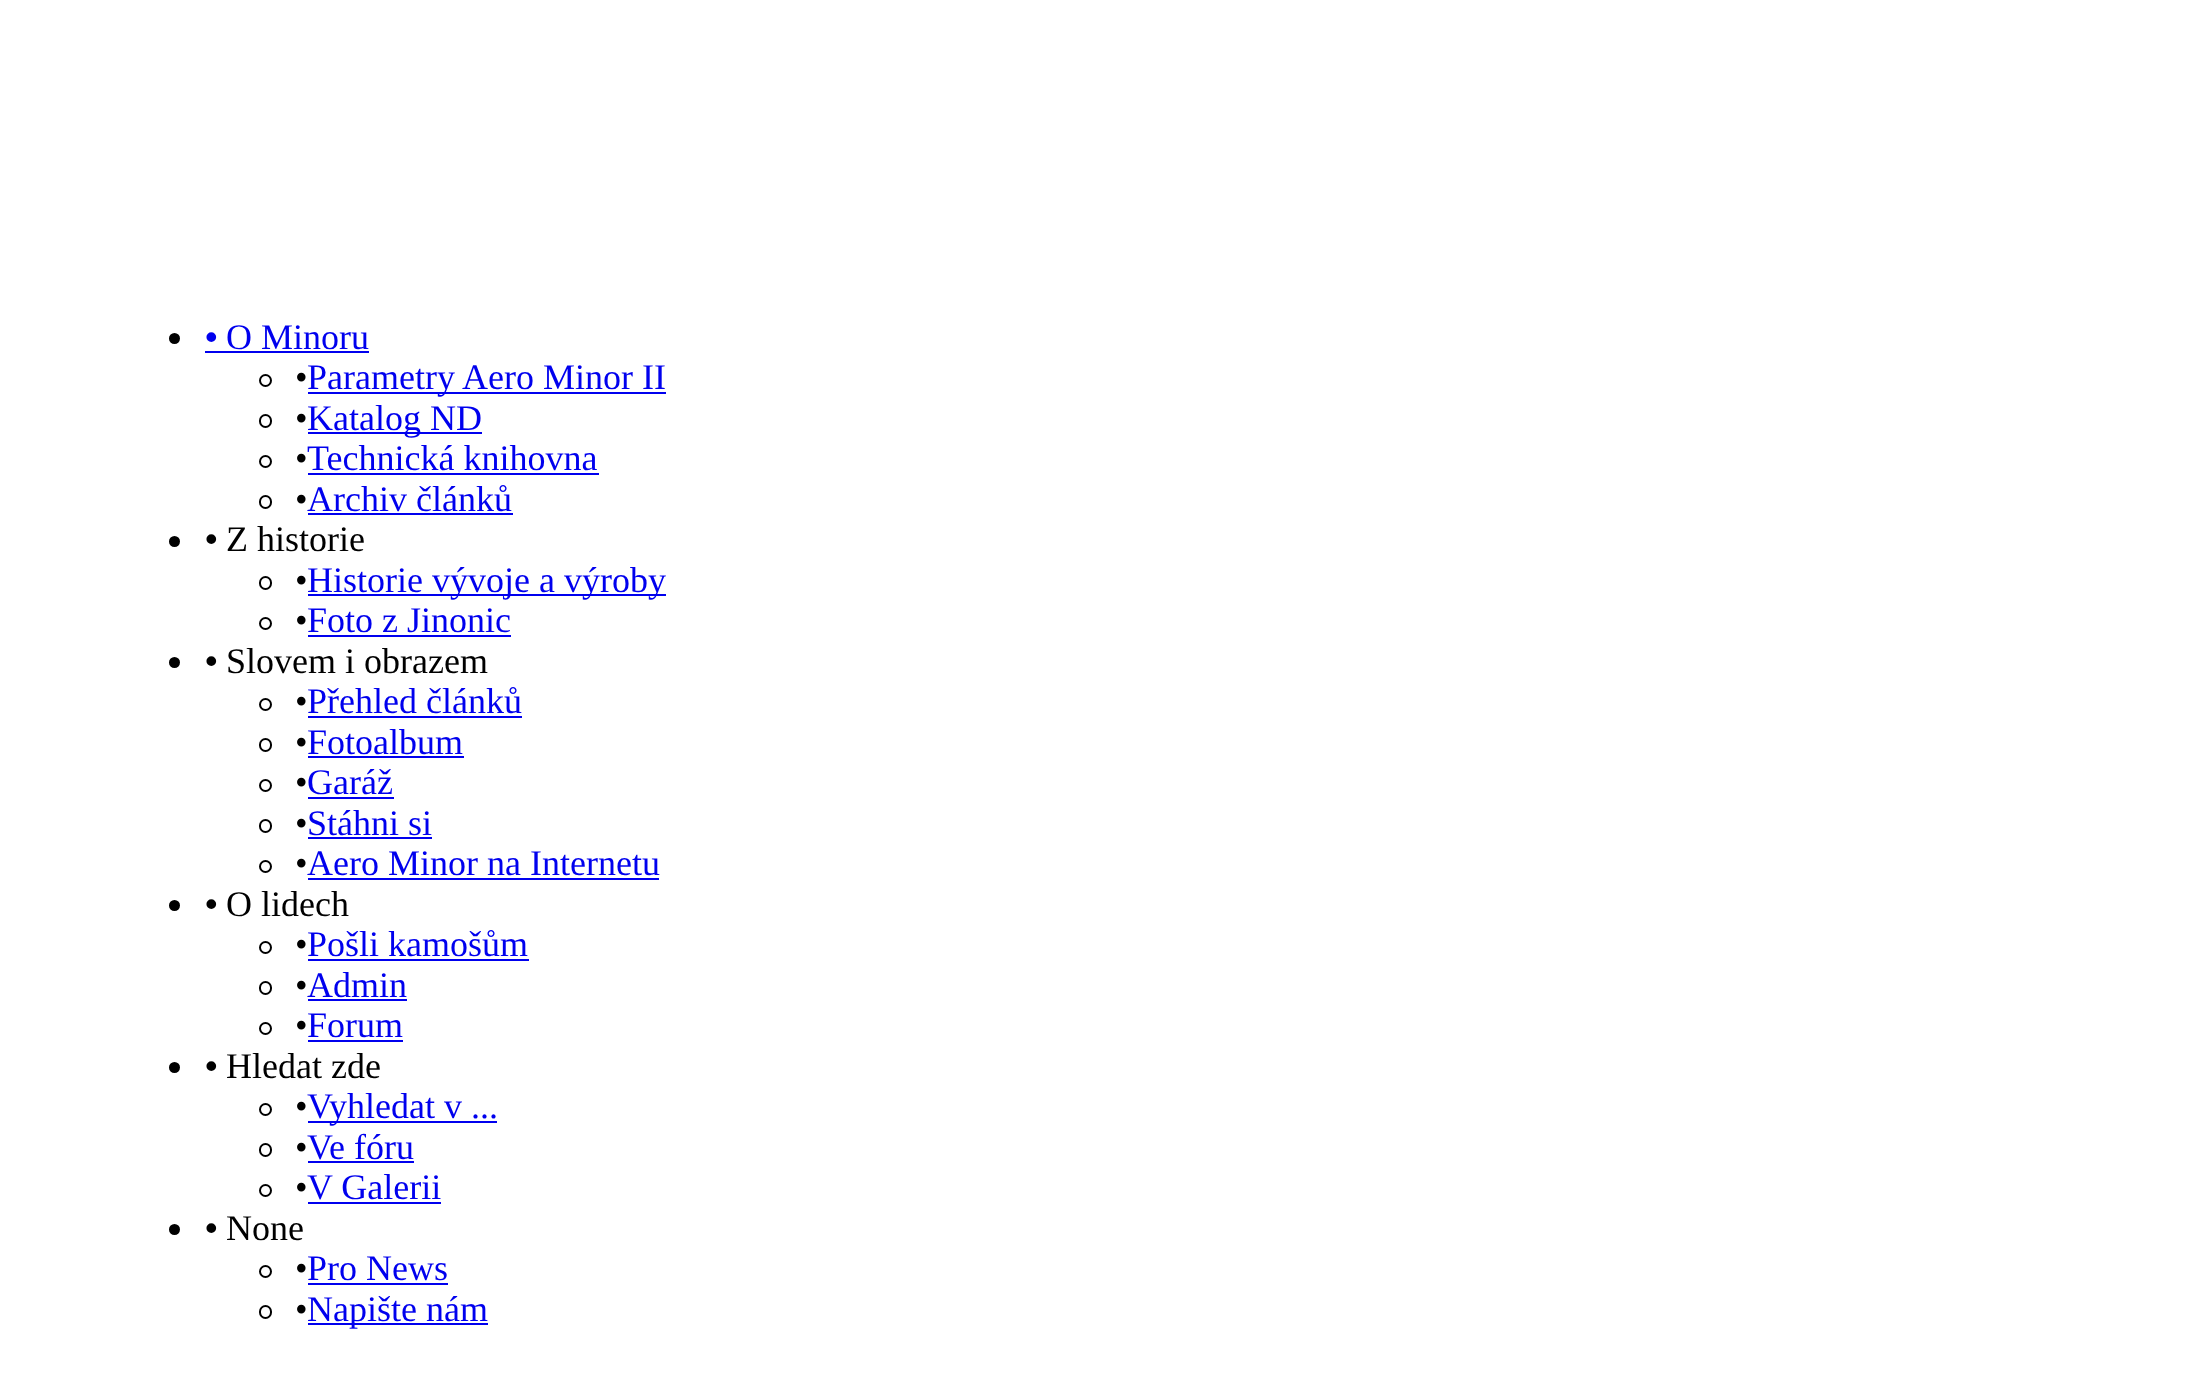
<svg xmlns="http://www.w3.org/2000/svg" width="2202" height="1400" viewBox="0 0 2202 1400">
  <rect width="100%" height="100%" fill="#fff"/>
  <circle cx="174.5" cy="338.5" r="5.5" fill="#000"/>
  <path d="M205 351h164v2H205z" fill="#00e"/>
  <circle cx="265.5" cy="380.5" r="5.5" fill="none" stroke="#000" stroke-width="2"/>
  <path d="M308 392h358v2H308z" fill="#00e"/>
  <rect x="260" y="415" width="11" height="12" rx="5.5" fill="none" stroke="#000" stroke-width="2"/>
  <path d="M308 432h174v2H308z" fill="#00e"/>
  <circle cx="265.5" cy="461.5" r="5.5" fill="none" stroke="#000" stroke-width="2"/>
  <path d="M308 473h291v2H308z" fill="#00e"/>
  <rect x="260" y="496" width="11" height="12" rx="5.5" fill="none" stroke="#000" stroke-width="2"/>
  <path d="M308 513h205v2H308z" fill="#00e"/>
  <circle cx="174.5" cy="541.5" r="5.5" fill="#000"/>
  <rect x="260" y="577" width="11" height="12" rx="5.5" fill="none" stroke="#000" stroke-width="2"/>
  <path d="M308 594h358v2H308z" fill="#00e"/>
  <circle cx="265.5" cy="623.5" r="5.5" fill="none" stroke="#000" stroke-width="2"/>
  <path d="M308 635h203v2H308z" fill="#00e"/>
  <circle cx="174.5" cy="662.5" r="5.5" fill="#000"/>
  <circle cx="265.5" cy="704.5" r="5.5" fill="none" stroke="#000" stroke-width="2"/>
  <path d="M308 716h214v2H308z" fill="#00e"/>
  <rect x="260" y="739" width="11" height="12" rx="5.5" fill="none" stroke="#000" stroke-width="2"/>
  <path d="M308 756h156v2H308z" fill="#00e"/>
  <circle cx="265.5" cy="785.5" r="5.5" fill="none" stroke="#000" stroke-width="2"/>
  <path d="M308 797h86v2H308z" fill="#00e"/>
  <rect x="260" y="820" width="11" height="12" rx="5.5" fill="none" stroke="#000" stroke-width="2"/>
  <path d="M308 837h124v2H308z" fill="#00e"/>
  <circle cx="265.5" cy="866.5" r="5.5" fill="none" stroke="#000" stroke-width="2"/>
  <path d="M308 878h351v2H308z" fill="#00e"/>
  <circle cx="174.5" cy="905.5" r="5.5" fill="#000"/>
  <circle cx="265.5" cy="947.5" r="5.5" fill="none" stroke="#000" stroke-width="2"/>
  <path d="M308 959h221v2H308z" fill="#00e"/>
  <rect x="260" y="982" width="11" height="12" rx="5.5" fill="none" stroke="#000" stroke-width="2"/>
  <path d="M308 999h99v2H308z" fill="#00e"/>
  <circle cx="265.5" cy="1028.5" r="5.5" fill="none" stroke="#000" stroke-width="2"/>
  <path d="M308 1040h95v2H308z" fill="#00e"/>
  <circle cx="174.5" cy="1067.5" r="5.5" fill="#000"/>
  <circle cx="265.5" cy="1109.5" r="5.5" fill="none" stroke="#000" stroke-width="2"/>
  <path d="M308 1121h189v2H308z" fill="#00e"/>
  <rect x="260" y="1144" width="11" height="12" rx="5.5" fill="none" stroke="#000" stroke-width="2"/>
  <path d="M308 1161h106v2H308z" fill="#00e"/>
  <circle cx="265.5" cy="1190.5" r="5.5" fill="none" stroke="#000" stroke-width="2"/>
  <path d="M308 1202h133v2H308z" fill="#00e"/>
  <circle cx="174.5" cy="1229.5" r="5.5" fill="#000"/>
  <circle cx="265.5" cy="1271.5" r="5.5" fill="none" stroke="#000" stroke-width="2"/>
  <path d="M308 1283h140v2H308z" fill="#00e"/>
  <rect x="260" y="1306" width="11" height="12" rx="5.5" fill="none" stroke="#000" stroke-width="2"/>
  <path d="M308 1323h180v2H308z" fill="#00e"/>
  <text x="205" y="349" font-family="Liberation Serif" font-size="36" font-weight="bold" fill="#00e">•</text>
  <text x="226" y="349" font-family="Liberation Serif" font-size="36" fill="#00e">O Minoru</text>
  <text x="295" y="389" font-family="Liberation Serif" font-size="36" fill="#000">•</text>
  <text x="307" y="389" font-family="Liberation Serif" font-size="36" fill="#00e">Parametry Aero Minor II</text>
  <text x="295" y="430" font-family="Liberation Serif" font-size="36" fill="#000">•</text>
  <text x="307" y="430" font-family="Liberation Serif" font-size="36" fill="#00e">Katalog ND</text>
  <text x="295" y="470" font-family="Liberation Serif" font-size="36" fill="#000">•</text>
  <text x="307" y="470" font-family="Liberation Serif" font-size="36" fill="#00e">Technická knihovna</text>
  <text x="295" y="511" font-family="Liberation Serif" font-size="36" fill="#000">•</text>
  <text x="307" y="511" font-family="Liberation Serif" font-size="36" fill="#00e">Archiv článků</text>
  <text x="205" y="551" font-family="Liberation Serif" font-size="36" font-weight="bold" fill="#000">•</text>
  <g font-family="Liberation Serif" font-size="36" fill="#000">
    <text x="226" y="551">Z historie</text>
    <text x="295" y="592">•</text>
  </g>
  <text x="307" y="592" font-family="Liberation Serif" font-size="36" fill="#00e">Historie vývoje a výroby</text>
  <text x="295" y="632" font-family="Liberation Serif" font-size="36" fill="#000">•</text>
  <text x="307" y="632" font-family="Liberation Serif" font-size="36" fill="#00e">Foto z Jinonic</text>
  <text x="205" y="673" font-family="Liberation Serif" font-size="36" font-weight="bold" fill="#000">•</text>
  <g font-family="Liberation Serif" font-size="36" fill="#000">
    <text x="226" y="673">Slovem i obrazem</text>
    <text x="295" y="713">•</text>
  </g>
  <text x="307" y="713" font-family="Liberation Serif" font-size="36" fill="#00e">Přehled článků</text>
  <text x="295" y="754" font-family="Liberation Serif" font-size="36" fill="#000">•</text>
  <text x="307" y="754" font-family="Liberation Serif" font-size="36" fill="#00e">Fotoalbum</text>
  <text x="295" y="794" font-family="Liberation Serif" font-size="36" fill="#000">•</text>
  <text x="307" y="794" font-family="Liberation Serif" font-size="36" fill="#00e">Garáž</text>
  <text x="295" y="835" font-family="Liberation Serif" font-size="36" fill="#000">•</text>
  <text x="307" y="835" font-family="Liberation Serif" font-size="36" fill="#00e">Stáhni si</text>
  <text x="295" y="875" font-family="Liberation Serif" font-size="36" fill="#000">•</text>
  <text x="307" y="875" font-family="Liberation Serif" font-size="36" fill="#00e">Aero Minor na Internetu</text>
  <text x="205" y="916" font-family="Liberation Serif" font-size="36" font-weight="bold" fill="#000">•</text>
  <g font-family="Liberation Serif" font-size="36" fill="#000">
    <text x="226" y="916">O lidech</text>
    <text x="295" y="956">•</text>
  </g>
  <text x="307" y="956" font-family="Liberation Serif" font-size="36" fill="#00e">Pošli kamošům</text>
  <text x="295" y="997" font-family="Liberation Serif" font-size="36" fill="#000">•</text>
  <text x="307" y="997" font-family="Liberation Serif" font-size="36" fill="#00e">Admin</text>
  <text x="295" y="1037" font-family="Liberation Serif" font-size="36" fill="#000">•</text>
  <text x="307" y="1037" font-family="Liberation Serif" font-size="36" fill="#00e">Forum</text>
  <text x="205" y="1078" font-family="Liberation Serif" font-size="36" font-weight="bold" fill="#000">•</text>
  <g font-family="Liberation Serif" font-size="36" fill="#000">
    <text x="226" y="1078">Hledat zde</text>
    <text x="295" y="1118">•</text>
  </g>
  <text x="307" y="1118" font-family="Liberation Serif" font-size="36" fill="#00e">Vyhledat v ...</text>
  <text x="295" y="1159" font-family="Liberation Serif" font-size="36" fill="#000">•</text>
  <text x="307" y="1159" font-family="Liberation Serif" font-size="36" fill="#00e">Ve fóru</text>
  <text x="295" y="1199" font-family="Liberation Serif" font-size="36" fill="#000">•</text>
  <text x="307" y="1199" font-family="Liberation Serif" font-size="36" fill="#00e">V Galerii</text>
  <text x="205" y="1240" font-family="Liberation Serif" font-size="36" font-weight="bold" fill="#000">•</text>
  <g font-family="Liberation Serif" font-size="36" fill="#000">
    <text x="226" y="1240">None</text>
    <text x="295" y="1280">•</text>
  </g>
  <text x="307" y="1280" font-family="Liberation Serif" font-size="36" fill="#00e">Pro News</text>
  <text x="295" y="1321" font-family="Liberation Serif" font-size="36" fill="#000">•</text>
  <text x="307" y="1321" font-family="Liberation Serif" font-size="36" fill="#00e">Napište nám</text>
</svg>
